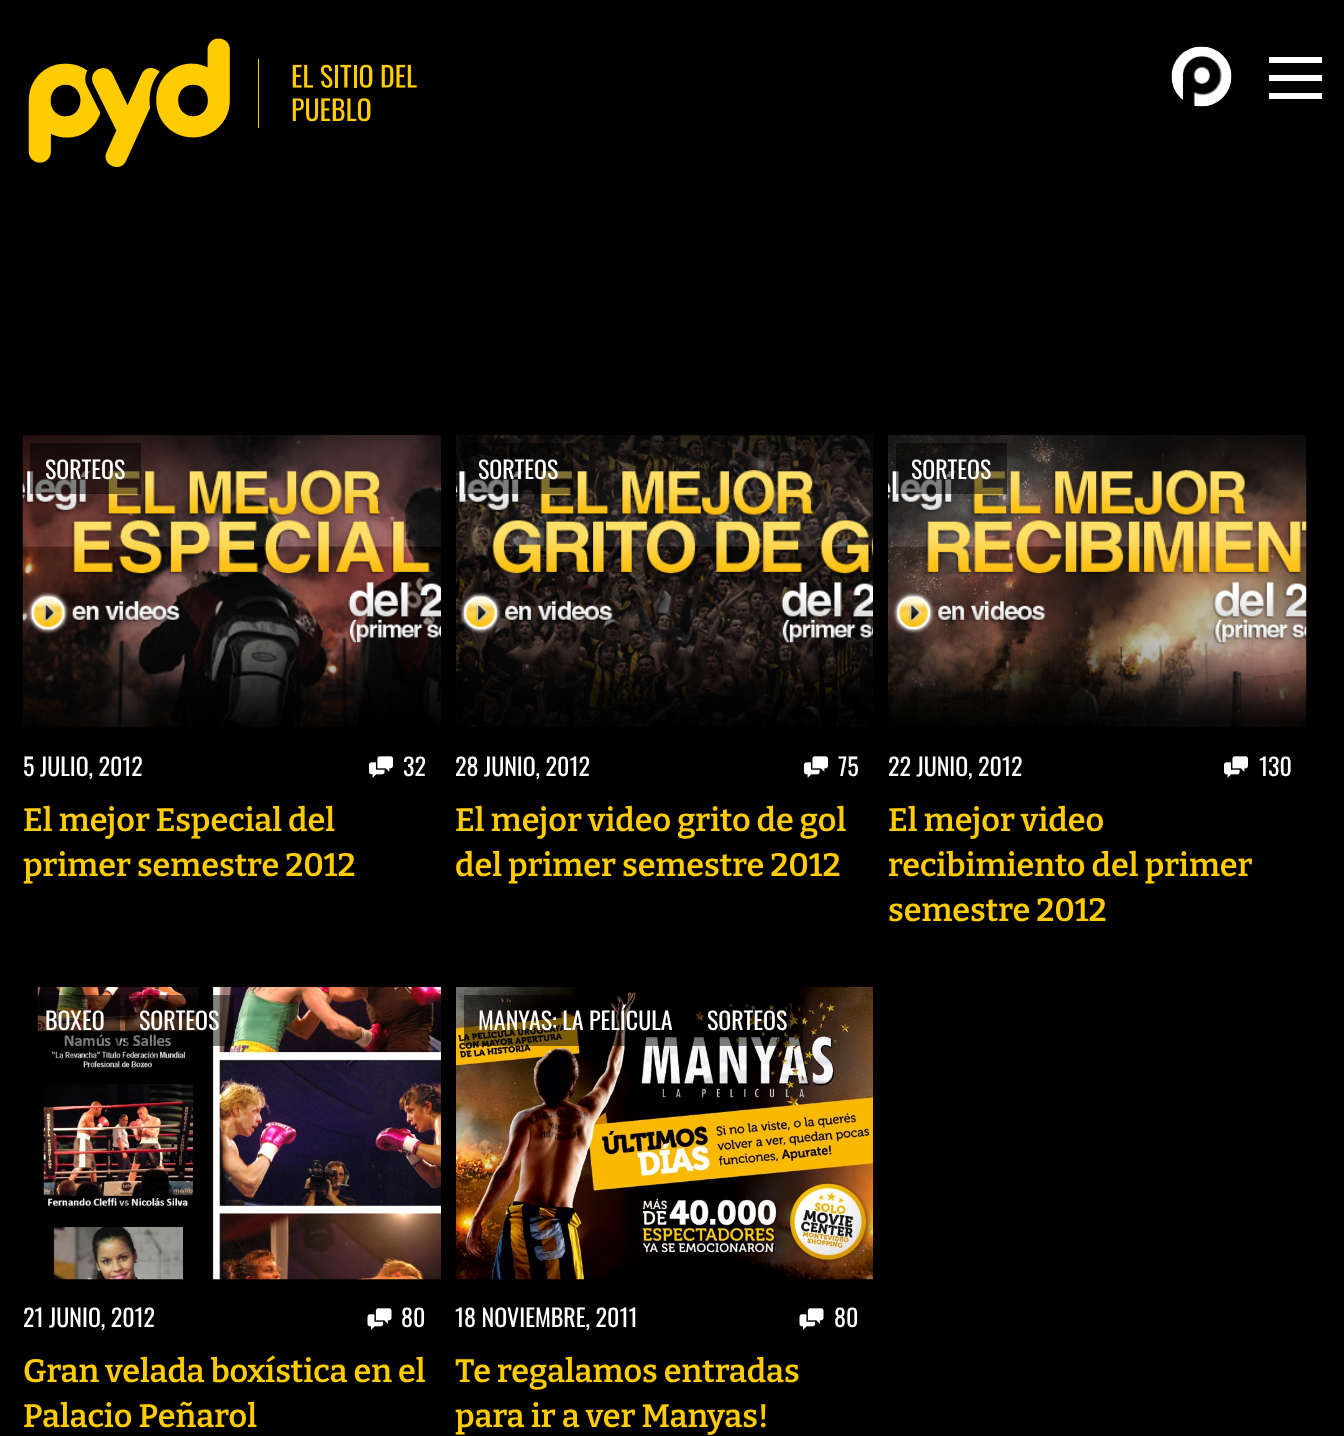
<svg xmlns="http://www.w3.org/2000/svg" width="1344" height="1436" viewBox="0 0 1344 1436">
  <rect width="100%" height="100%" fill="#000"/>
  <image x="28" y="38" width="389" height="130" href="img/1.png"/>
  <image x="1171" y="46" width="61" height="61" href="img/2.png"/>
  <path d="M1269 57h53v6H1269z" fill="#fff"/>
  <path d="M1269 75h53v6H1269z" fill="#fff"/>
  <path d="M1269 93h53v6H1269z" fill="#fff"/>
  <image x="22" y="435" width="419" height="293" href="img/3.png"/>
  <path d="M30 443h111v51H30z" fill="#00000080"/>
  <image x="369" y="756" width="24" height="22" href="img/4.png"/>
  <image x="456" y="435" width="417" height="292" href="img/5.png"/>
  <path d="M464 443h109v51H464z" fill="#00000080"/>
  <image x="804" y="756" width="24" height="22" href="img/4.png"/>
  <image x="888" y="435" width="419" height="292" href="img/6.png"/>
  <path d="M896 443h111v51H896z" fill="#00000080"/>
  <image x="1224" y="756" width="24" height="22" href="img/4.png"/>
  <image x="36" y="987" width="405" height="293" href="img/7.png"/>
  <path d="M36 995h84v51H36z" fill="#00000080"/>
  <path d="M125 995h109v51H125z" fill="#00000080"/>
  <image x="367" y="1308" width="25" height="22" href="img/8.png"/>
  <image x="456" y="987" width="417" height="293" href="img/9.png"/>
  <path d="M464 995h214v51H464z" fill="#00000080"/>
  <path d="M692 995h111v51H692z" fill="#00000080"/>
  <image x="799" y="1308" width="25" height="22" href="img/8.png"/>
  <g font-family="Oswald" font-size="24" fill="#fff">
    <text x="45" y="479">SORTEOS</text>
    <text x="23" y="776">5 JULIO, 2012</text>
    <text x="403" y="776">32</text>
  </g>
  <g font-family="Bitter" font-size="32.4" font-weight="600" fill="#ffcc02">
    <text x="23" y="831">El mejor Especial del</text>
    <text x="23" y="876">primer semestre 2012</text>
  </g>
  <g font-family="Oswald" font-size="24" fill="#fff">
    <text x="478" y="479">SORTEOS</text>
    <text x="455" y="776">28 JUNIO, 2012</text>
    <text x="838" y="776">75</text>
  </g>
  <g font-family="Bitter" font-size="32.4" font-weight="600" fill="#ffcc02">
    <text x="455" y="831">El mejor video grito de gol</text>
    <text x="455" y="876">del primer semestre 2012</text>
  </g>
  <g font-family="Oswald" font-size="24" fill="#fff">
    <text x="911" y="479">SORTEOS</text>
    <text x="888" y="776">22 JUNIO, 2012</text>
    <text x="1259" y="776">130</text>
  </g>
  <g font-family="Bitter" font-size="32.4" font-weight="600" fill="#ffcc02">
    <text x="888" y="831">El mejor video</text>
    <text x="888" y="876">recibimiento del primer</text>
    <text x="888" y="921">semestre 2012</text>
  </g>
  <g font-family="Oswald" font-size="24" fill="#fff">
    <text x="45" y="1030">BOXEO</text>
    <text x="139" y="1030">SORTEOS</text>
    <text x="23" y="1327">21 JUNIO, 2012</text>
    <text x="401" y="1327">80</text>
  </g>
  <g font-family="Bitter" font-size="32.4" font-weight="600" fill="#ffcc02">
    <text x="23" y="1382">Gran velada boxística en el</text>
    <text x="23" y="1427">Palacio Peñarol</text>
  </g>
  <g font-family="Oswald" font-size="24" fill="#fff">
    <text x="478" y="1030">MANYAS: LA PELÍCULA</text>
    <text x="707" y="1030">SORTEOS</text>
    <text x="455" y="1327">18 NOVIEMBRE, 2011</text>
    <text x="834" y="1327">80</text>
  </g>
  <g font-family="Bitter" font-size="32.4" font-weight="600" fill="#ffcc02">
    <text x="455" y="1382">Te regalamos entradas</text>
    <text x="455" y="1427">para ir a ver Manyas!</text>
  </g>
</svg>
